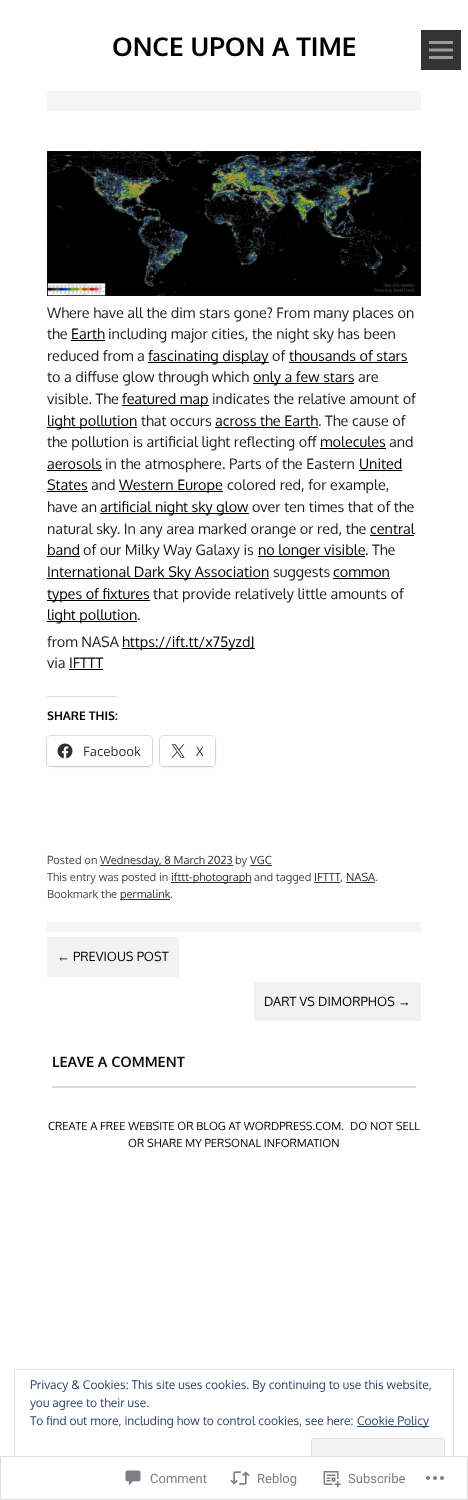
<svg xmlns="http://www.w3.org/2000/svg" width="468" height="1500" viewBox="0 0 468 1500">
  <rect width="100%" height="100%" fill="#fff"/>
  <path d="M47 91h374v20H47z" fill="#f5f5f5"/>
  <path d="M421 30h40v40H421z" fill="#343434"/>
  <image x="429" y="41" width="24" height="18" href="img/1.png"/>
  <path d="M47 922h374v10H47z" fill="#f5f5f5"/>
  <image x="47" y="151" width="374" height="145" href="img/2.png"/>
  <path d="M71 340h34v1H71z" fill="#000"/>
  <path d="M148 362h121v1H148z" fill="#000"/>
  <path d="M289 362h119v1H289z" fill="#000"/>
  <path d="M253 383h101v1H253z" fill="#000"/>
  <path d="M122 405h87v1H122z" fill="#000"/>
  <path d="M47 427h90v1H47z" fill="#000"/>
  <path d="M215 427h103v1H215z" fill="#000"/>
  <path d="M320 448h66v1H320z" fill="#000"/>
  <path d="M47 470h55v1H47z" fill="#000"/>
  <path d="M359 470h43v1H359z" fill="#000"/>
  <path d="M47 491h41v1H47z" fill="#000"/>
  <path d="M119 491h104v1H119z" fill="#000"/>
  <path d="M100 513h149v1H100z" fill="#000"/>
  <path d="M370 535h44v1H370z" fill="#000"/>
  <path d="M47 556h33v1H47z" fill="#000"/>
  <path d="M258 556h107v1H258z" fill="#000"/>
  <path d="M47 578h222v1H47z" fill="#000"/>
  <path d="M333 578h57v1H333z" fill="#000"/>
  <path d="M47 600h103v1H47z" fill="#000"/>
  <path d="M47 621h90v1H47z" fill="#000"/>
  <path d="M122 648h133v1H122z" fill="#000"/>
  <path d="M69 669h34v1H69z" fill="#000"/>
  <path d="M47 696h70v1H47z" fill="#dcdcde"/>
  <rect x="46.5" y="735.5" width="106" height="31" rx="4.5" fill="none" stroke="#e0e0e0"/>
  <rect x="47" y="737" width="105" height="30" rx="4" fill="#0000001f" filter="blur(1px)"/>
  <rect x="47" y="736" width="105" height="30" rx="4" fill="#fff"/>
  <image x="57" y="743" width="16" height="16" href="img/3.png"/>
  <rect x="159.5" y="735.5" width="56" height="31" rx="4.5" fill="none" stroke="#e0e0e0"/>
  <rect x="160" y="737" width="55" height="30" rx="4" fill="#0000001f" filter="blur(1px)"/>
  <rect x="160" y="736" width="55" height="30" rx="4" fill="#fff"/>
  <image x="171" y="744" width="14" height="14" href="img/4.png"/>
  <path d="M100 865h133v1H100z" fill="#333"/>
  <path d="M250 865h22v1H250z" fill="#333"/>
  <path d="M171 882h80v1H171z" fill="#333"/>
  <path d="M314 882h26v1H314z" fill="#333"/>
  <path d="M346 882h29v1H346z" fill="#333"/>
  <path d="M120 899h50v1H120z" fill="#333"/>
  <path d="M47 937h132v40H47z" fill="#f2f2f2"/>
  <path d="M254 982h167v39H254z" fill="#f2f2f2"/>
  <path d="M52 1086h364v2H52z" fill="#dcdcde"/>
  <path d="M14.5 1369.5h439v116H14.5z" fill="none" stroke="#dedede"/>
  <path d="M357 1426h72v1H357z" fill="#2e4467"/>
  <rect x="311.5" y="1438.5" width="133" height="38" rx="2.5" fill="#f3f3f3" stroke="#dedede"/>
  <path d="M14 1456h440v30H14z" fill="#fffffffa"/>
  <path d="M0.5 1456.5h467v43H0.5z" fill="none" stroke="#dcdcdefa"/>
  <image x="125" y="1470" width="16" height="16" href="img/5.png"/>
  <image x="230" y="1471" width="20" height="14" href="img/6.png"/>
  <image x="323" y="1471" width="18" height="17" href="img/7.png"/>
  <image x="426" y="1476" width="18" height="4" href="img/8.png"/>
  <text x="112" y="56" font-family="Oxygen" font-size="26" font-weight="bold" fill="#000">ONCE UPON A TIME</text>
  <g font-family="Oxygen" font-size="14.4" fill="#191919">
    <text x="47" y="318">Where have all the dim stars gone? From many places on</text>
    <text x="47" y="339">the</text>
  </g>
  <text x="71" y="339" font-family="Oxygen" font-size="14.4" fill="#000">Earth</text>
  <g font-family="Oxygen" font-size="14.4" fill="#191919">
    <text x="108" y="339">including major cities, the night sky has been</text>
    <text x="47" y="361">reduced from a</text>
  </g>
  <text x="148" y="361" font-family="Oxygen" font-size="14.4" fill="#000">fascinating display</text>
  <text x="272" y="361" font-family="Oxygen" font-size="14.4" fill="#191919">of</text>
  <text x="289" y="361" font-family="Oxygen" font-size="14.4" fill="#000">thousands of stars</text>
  <text x="47" y="382" font-family="Oxygen" font-size="14.4" fill="#191919">to a diffuse glow through which</text>
  <text x="253" y="382" font-family="Oxygen" font-size="14.4" fill="#000">only a few stars</text>
  <g font-family="Oxygen" font-size="14.4" fill="#191919">
    <text x="358" y="382">are</text>
    <text x="47" y="404">visible. The</text>
  </g>
  <text x="122" y="404" font-family="Oxygen" font-size="14.4" fill="#000">featured map</text>
  <text x="212" y="404" font-family="Oxygen" font-size="14.4" fill="#191919">indicates the relative amount of</text>
  <text x="47" y="426" font-family="Oxygen" font-size="14.4" fill="#000">light pollution</text>
  <text x="141" y="426" font-family="Oxygen" font-size="14.4" fill="#191919">that occurs</text>
  <text x="215" y="426" font-family="Oxygen" font-size="14.4" fill="#000">across the Earth</text>
  <g font-family="Oxygen" font-size="14.4" fill="#191919">
    <text x="318" y="426">. The cause of</text>
    <text x="47" y="447">the pollution is artificial light reflecting off</text>
  </g>
  <text x="320" y="447" font-family="Oxygen" font-size="14.4" fill="#000">molecules</text>
  <text x="389" y="447" font-family="Oxygen" font-size="14.4" fill="#191919">and</text>
  <text x="47" y="469" font-family="Oxygen" font-size="14.4" fill="#000">aerosols</text>
  <text x="105" y="469" font-family="Oxygen" font-size="14.4" fill="#191919">in the atmosphere. Parts of the Eastern</text>
  <g font-family="Oxygen" font-size="14.4" fill="#000">
    <text x="359" y="469">United</text>
    <text x="47" y="490">States</text>
  </g>
  <text x="91" y="490" font-family="Oxygen" font-size="14.4" fill="#191919">and</text>
  <text x="119" y="490" font-family="Oxygen" font-size="14.4" fill="#000">Western Europe</text>
  <g font-family="Oxygen" font-size="14.4" fill="#191919">
    <text x="227" y="490">colored red, for example,</text>
    <text x="47" y="512">have an</text>
  </g>
  <text x="100" y="512" font-family="Oxygen" font-size="14.4" fill="#000">artificial night sky glow</text>
  <g font-family="Oxygen" font-size="14.4" fill="#191919">
    <text x="252" y="512">over ten times that of the</text>
    <text x="47" y="534">natural sky. In any area marked orange or red, the</text>
  </g>
  <g font-family="Oxygen" font-size="14.4" fill="#000">
    <text x="370" y="534">central</text>
    <text x="47" y="555">band</text>
  </g>
  <text x="83" y="555" font-family="Oxygen" font-size="14.4" fill="#191919">of our Milky Way Galaxy is</text>
  <text x="258" y="555" font-family="Oxygen" font-size="14.4" fill="#000">no longer visible</text>
  <text x="365" y="555" font-family="Oxygen" font-size="14.4" fill="#191919">. The</text>
  <text x="47" y="577" font-family="Oxygen" font-size="14.4" fill="#000">International Dark Sky Association</text>
  <text x="273" y="577" font-family="Oxygen" font-size="14.4" fill="#191919">suggests</text>
  <g font-family="Oxygen" font-size="14.4" fill="#000">
    <text x="333" y="577">common</text>
    <text x="47" y="599">types of fixtures</text>
  </g>
  <text x="153" y="599" font-family="Oxygen" font-size="14.4" fill="#191919">that provide relatively little amounts of</text>
  <text x="47" y="620" font-family="Oxygen" font-size="14.4" fill="#000">light pollution</text>
  <g font-family="Oxygen" font-size="14.4" fill="#191919">
    <text x="137" y="620">.</text>
    <text x="47" y="647">from NASA</text>
  </g>
  <text x="122" y="647" font-family="Oxygen" font-size="14.4" fill="#000">https://ift.tt/x75yzdJ</text>
  <text x="47" y="668" font-family="Oxygen" font-size="14.4" fill="#191919">via</text>
  <text x="69" y="668" font-family="Oxygen" font-size="14.4" fill="#000">IFTTT</text>
  <text x="47" y="720" font-family="Oxygen" font-size="12" font-weight="bold" fill="#000">SHARE THIS:</text>
  <g font-family="Open Sans" font-size="13" fill="#2c3338">
    <text x="83" y="756">Facebook</text>
    <text x="196" y="756">X</text>
  </g>
  <text x="47" y="864" font-family="Oxygen" font-size="11.2" fill="#474747">Posted on</text>
  <text x="100" y="864" font-family="Oxygen" font-size="11.2" fill="#333">Wednesday, 8 March 2023</text>
  <text x="235" y="864" font-family="Oxygen" font-size="11.2" fill="#474747">by</text>
  <text x="250" y="864" font-family="Oxygen" font-size="11.2" fill="#333">VGC</text>
  <text x="47" y="881" font-family="Oxygen" font-size="11.2" fill="#474747">This entry was posted in</text>
  <text x="171" y="881" font-family="Oxygen" font-size="11.2" fill="#333">ifttt-photograph</text>
  <text x="254" y="881" font-family="Oxygen" font-size="11.2" fill="#474747">and tagged</text>
  <text x="314" y="881" font-family="Oxygen" font-size="11.2" fill="#333">IFTTT</text>
  <text x="340" y="881" font-family="Oxygen" font-size="11.2" fill="#474747">,</text>
  <text x="346" y="881" font-family="Oxygen" font-size="11.2" fill="#333">NASA</text>
  <g font-family="Oxygen" font-size="11.2" fill="#474747">
    <text x="375" y="881">.</text>
    <text x="47" y="898">Bookmark the</text>
  </g>
  <text x="120" y="898" font-family="Oxygen" font-size="11.2" fill="#333">permalink</text>
  <text x="170" y="898" font-family="Oxygen" font-size="11.2" fill="#474747">.</text>
  <text x="57" y="961" font-family="Liberation Sans" font-size="12.75" fill="#000">←</text>
  <g font-family="Oxygen" font-size="12.75" fill="#000">
    <text x="73" y="961">PREVIOUS POST</text>
    <text x="264" y="1006">DART VS DIMORPHOS</text>
  </g>
  <text x="398" y="1006" font-family="Liberation Sans" font-size="12.75" fill="#000">→</text>
  <text x="52" y="1067" font-family="Oxygen" font-size="14.4" font-weight="bold" fill="#111">LEAVE A COMMENT</text>
  <g font-family="Oxygen" font-size="11.2" fill="#000">
    <text x="48" y="1130">CREATE A FREE WEBSITE OR BLOG AT WORDPRESS.COM.</text>
    <text x="350" y="1130">DO NOT SELL</text>
    <text x="128" y="1147">OR SHARE MY PERSONAL INFORMATION</text>
  </g>
  <g font-family="Oxygen" font-size="12" fill="#2e4467">
    <text x="30" y="1389">Privacy &amp; Cookies: This site uses cookies. By continuing to use this website,</text>
    <text x="30" y="1407">you agree to their use.</text>
    <text x="30" y="1425">To find out more, including how to control cookies, see here:</text>
    <text x="357" y="1425">Cookie Policy</text>
  </g>
  <g font-family="Roboto" font-size="13" fill="#7b7f85">
    <text x="150" y="1483">Comment</text>
    <text x="257" y="1483">Reblog</text>
    <text x="348" y="1483">Subscribe</text>
  </g>
</svg>
